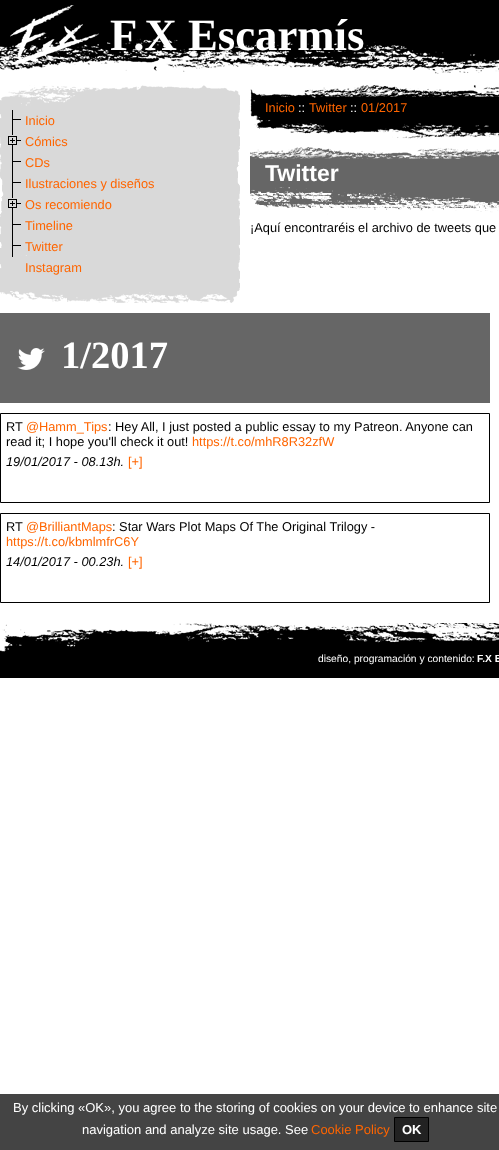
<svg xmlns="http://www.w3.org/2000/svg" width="499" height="1150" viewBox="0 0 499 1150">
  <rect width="100%" height="100%" fill="#fff"/>
  <image x="0" y="0" width="499" height="74" href="img/1.png"/>
  <image x="10" y="5" width="89" height="60" href="img/2.png"/>
  <image x="0" y="85" width="240" height="20" href="img/3.png"/>
  <image x="0" y="283" width="240" height="20" href="img/4.png"/>
  <image x="0" y="105" width="240" height="178" href="img/5.png"/>
  <image x="12" y="110" width="9" height="21" href="img/6.png"/>
  <image x="12" y="131" width="1" height="21" href="img/7.png"/>
  <image x="8" y="136" width="13" height="10" href="img/8.png"/>
  <image x="12" y="152" width="9" height="21" href="img/6.png"/>
  <image x="12" y="173" width="9" height="21" href="img/6.png"/>
  <image x="12" y="194" width="1" height="21" href="img/7.png"/>
  <image x="8" y="199" width="13" height="10" href="img/8.png"/>
  <image x="12" y="215" width="9" height="21" href="img/6.png"/>
  <image x="12" y="236" width="9" height="21" href="img/6.png"/>
  <image x="250" y="85" width="249" height="54" href="img/9.png"/>
  <image x="250" y="147" width="249" height="13" href="img/10.png"/>
  <path d="M250 160h249v27H250z" fill="#666"/>
  <image x="250" y="187" width="249" height="28" href="img/11.png"/>
  <path d="M0 313h490v90H0z" fill="#666"/>
  <image x="17" y="348" width="28" height="22" href="img/12.png"/>
  <path d="M0.5 413.5h489v89H0.5z" fill="none" stroke="#000"/>
  <path d="M0.5 513.5h489v89H0.5z" fill="none" stroke="#000"/>
  <image x="0" y="623" width="499" height="55" href="img/13.png"/>
  <path d="M0 1094h499v56H0z" fill="#444"/>
  <path d="M394.5 1117.5h34v24H394.5z" fill="#222" stroke="#000"/>
  <text x="110" y="50" font-family="Liberation Serif" font-size="44.75" font-weight="bold" fill="#fff">F.X Escarmís</text>
  <g font-family="Liberation Sans" font-size="12.8" fill="#ff6500">
    <text x="25" y="125">Inicio</text>
    <text x="25" y="146">Cómics</text>
    <text x="25" y="167">CDs</text>
    <text x="25" y="188">Ilustraciones y diseños</text>
    <text x="25" y="209">Os recomiendo</text>
    <text x="25" y="230">Timeline</text>
    <text x="25" y="251">Twitter</text>
    <text x="25" y="272">Instagram</text>
    <text x="265" y="112">Inicio</text>
  </g>
  <text x="298" y="112" font-family="Liberation Sans" font-size="12.8" fill="#fff">::</text>
  <text x="309" y="112" font-family="Liberation Sans" font-size="12.8" fill="#ff6500">Twitter</text>
  <text x="350" y="112" font-family="Liberation Sans" font-size="12.8" fill="#fff">::</text>
  <text x="361" y="112" font-family="Liberation Sans" font-size="12.8" fill="#ff6500">01/2017</text>
  <text x="265" y="181" font-family="Liberation Sans" font-size="23" font-weight="bold" fill="#fff">Twitter</text>
  <text x="250" y="232" font-family="Liberation Sans" font-size="12.8" fill="#000">¡Aquí encontraréis el archivo de tweets que</text>
  <text x="61" y="368" font-family="Liberation Serif" font-size="38.5" font-weight="bold" fill="#fff">1/2017</text>
  <text x="6" y="431" font-family="Liberation Sans" font-size="12.8" fill="#000">RT</text>
  <text x="26" y="431" font-family="Liberation Sans" font-size="12.8" fill="#ff6500">@Hamm_Tips</text>
  <g font-family="Liberation Sans" font-size="12.8" fill="#000">
    <text x="108" y="431">: Hey All, I just posted a public essay to my Patreon. Anyone can</text>
    <text x="6" y="446">read it; I hope you'll check it out!</text>
  </g>
  <text x="192" y="446" font-family="Liberation Sans" font-size="12.8" fill="#ff6500">https://t.co/mhR8R32zfW</text>
  <text x="6" y="466" font-family="Liberation Sans" font-size="12.8" font-style="italic" fill="#000">19/01/2017 - 08.13h.</text>
  <text x="128" y="466" font-family="Liberation Sans" font-size="12.8" fill="#ff6500">[+]</text>
  <text x="6" y="531" font-family="Liberation Sans" font-size="12.8" fill="#000">RT</text>
  <text x="26" y="531" font-family="Liberation Sans" font-size="12.8" fill="#ff6500">@BrilliantMaps</text>
  <text x="112" y="531" font-family="Liberation Sans" font-size="12.8" fill="#000">: Star Wars Plot Maps Of The Original Trilogy -</text>
  <text x="6" y="546" font-family="Liberation Sans" font-size="12.8" fill="#ff6500">https://t.co/kbmlmfrC6Y</text>
  <text x="6" y="566" font-family="Liberation Sans" font-size="12.8" font-style="italic" fill="#000">14/01/2017 - 00.23h.</text>
  <text x="128" y="566" font-family="Liberation Sans" font-size="12.8" fill="#ff6500">[+]</text>
  <text x="318" y="662" font-family="Liberation Sans" font-size="10.25" fill="#fff">diseño, programación y contenido:</text>
  <text x="477" y="662" font-family="Liberation Sans" font-size="10.25" font-weight="bold" fill="#fff">F.X E</text>
  <g font-family="Liberation Sans" font-size="13" fill="#fff">
    <text x="13" y="1112">By clicking «OK», you agree to the storing of cookies on your device to enhance site</text>
    <text x="82" y="1134">navigation and analyze site usage. See</text>
  </g>
  <text x="311" y="1134" font-family="Liberation Sans" font-size="13" fill="#ff6500">Cookie Policy</text>
  <text x="402" y="1134" font-family="Liberation Sans" font-size="13" font-weight="bold" fill="#fff">OK</text>
</svg>
